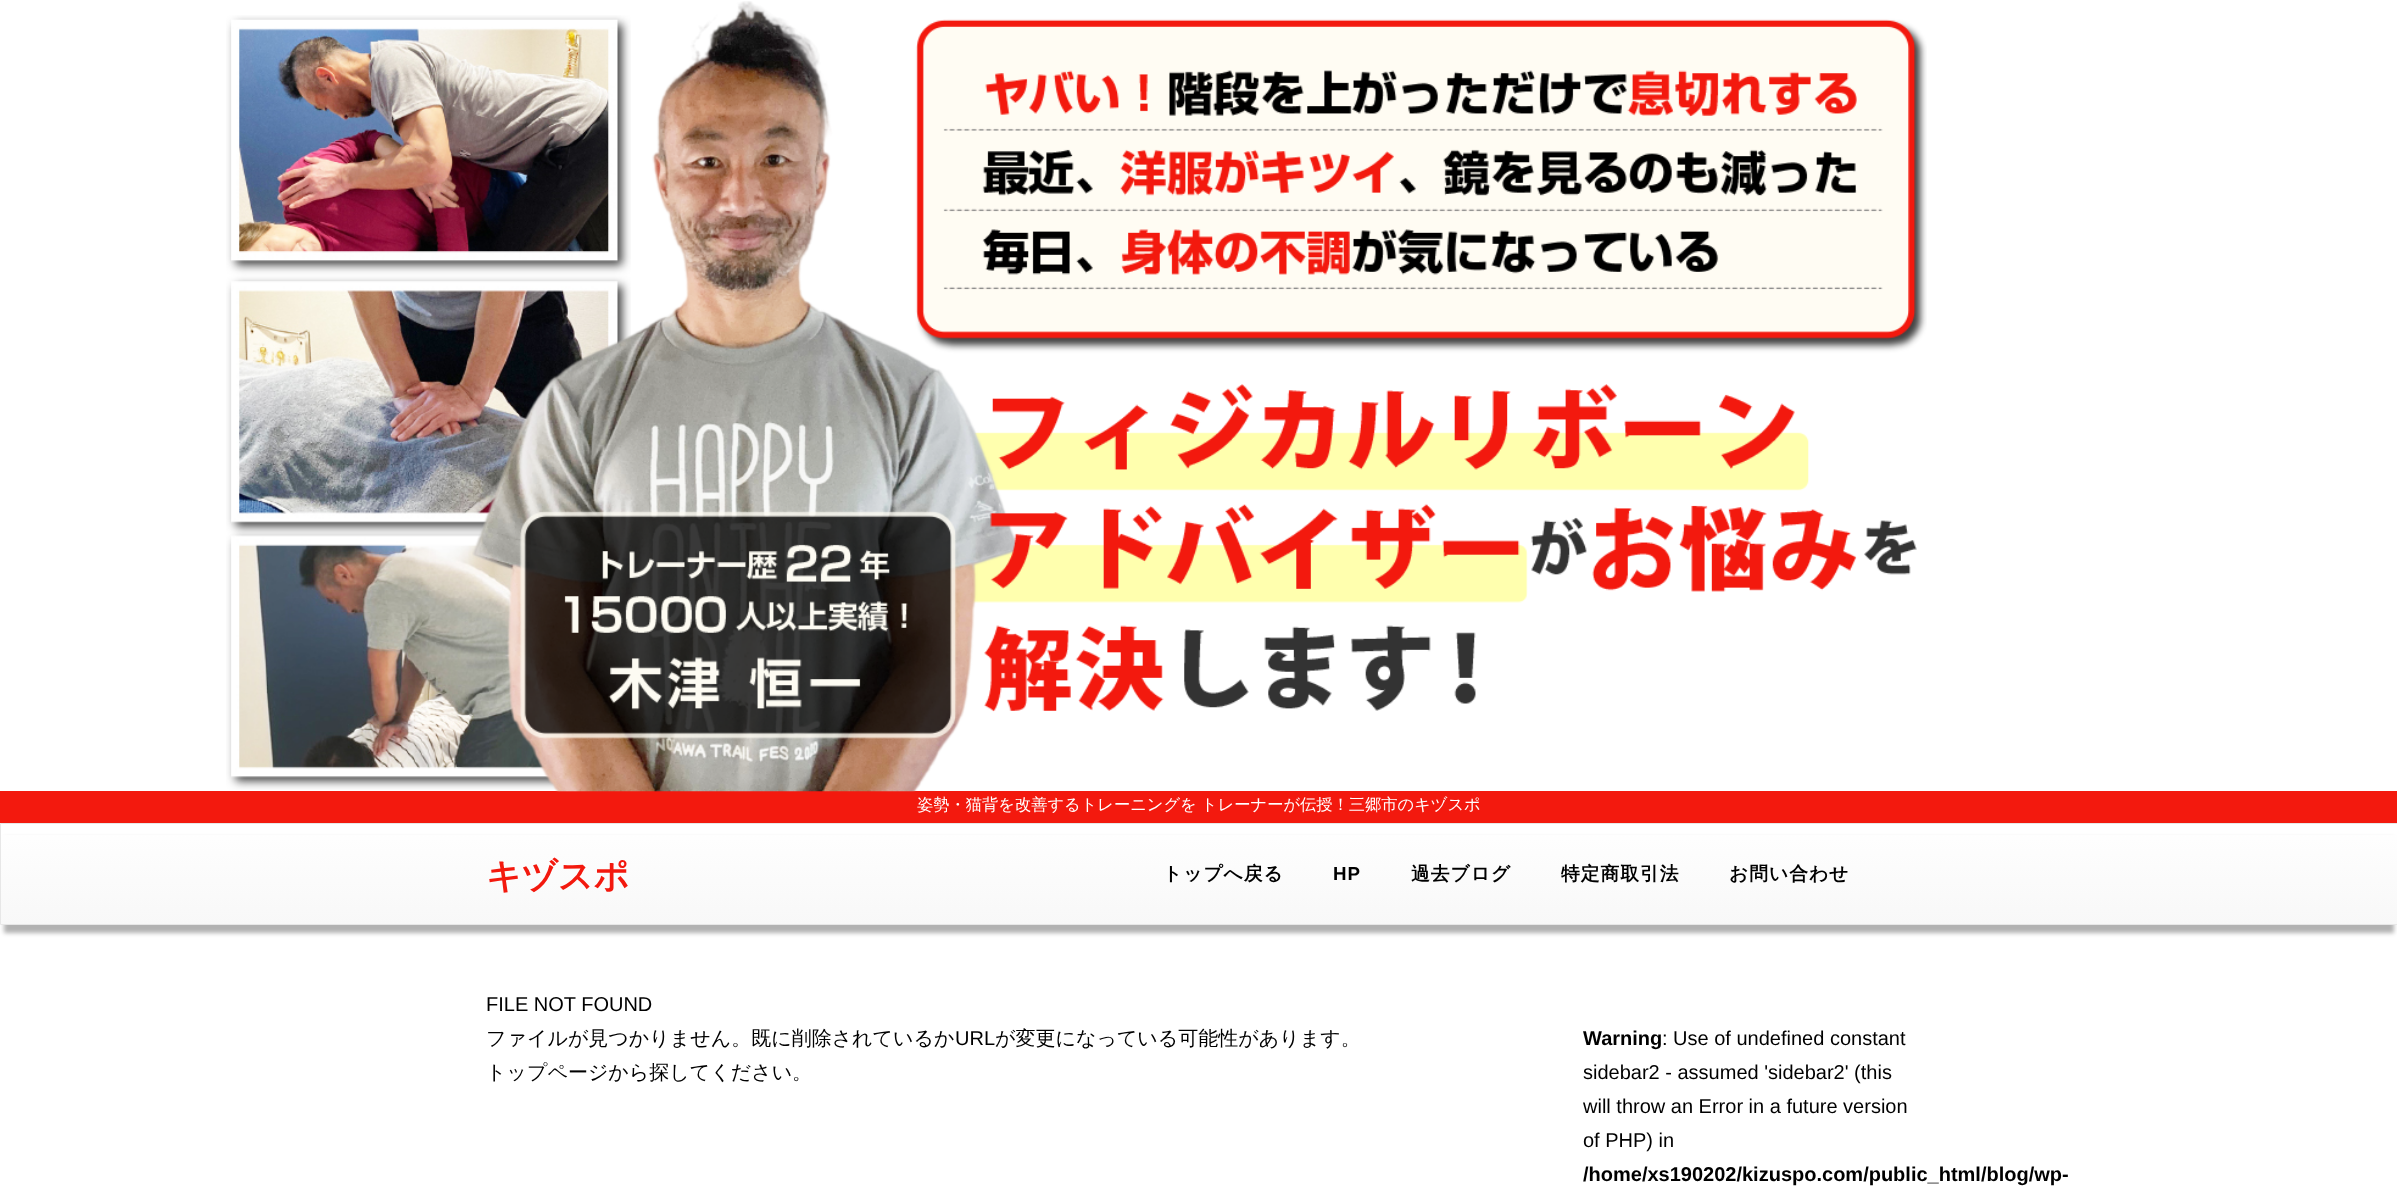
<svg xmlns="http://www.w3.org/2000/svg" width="2397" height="1191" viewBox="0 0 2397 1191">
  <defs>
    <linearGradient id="g1" gradientUnits="userSpaceOnUse" x1="1199" y1="824" x2="1199" y2="924"><stop offset="0" stop-color="#fff"/><stop offset="1" stop-color="#f8f8f8"/></linearGradient>
  </defs>
  <rect width="100%" height="100%" fill="#fff"/>
  <image x="226" y="15" width="405" height="775" href="img/1.png"/>
  <path d="M0 791h2397v32H0z" fill="#f3190e"/>
  <image x="472" y="1" width="1455" height="791" href="img/2.png"/>
  <path d="M4 838h2390v95H4z" fill="#0000004d" filter="blur(2px)"/>
  <path d="M1 835h2396v89H1z" fill="url(#g1)"/>
  <path d="M0.5 823.5h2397v101H0.5z" fill="none" stroke="#e7e7e7"/>
  <g font-family="WenQuanYi Zen Hei" font-size="16.25" font-weight="500" fill="#fff">
    <text x="917" y="810">姿勢・猫背を改善するトレーニングを</text>
    <text x="1201" y="810">トレーナーが伝授！三郷市のキヅスポ</text>
  </g>
  <text x="486" y="888" font-family="WenQuanYi Zen Hei" font-size="35" font-weight="bold" fill="#f3190e">キヅスポ</text>
  <text x="1163" y="880" font-family="WenQuanYi Zen Hei" font-size="18.75" font-weight="bold" letter-spacing="1" fill="#000">トップへ戻る</text>
  <text x="1333" y="880" font-family="Liberation Sans" font-size="18.75" font-weight="bold" letter-spacing="1" fill="#000">HP</text>
  <g font-family="WenQuanYi Zen Hei" font-size="18.75" font-weight="bold" letter-spacing="1" fill="#000">
    <text x="1411" y="880">過去ブログ</text>
    <text x="1561" y="880">特定商取引法</text>
    <text x="1729" y="880">お問い合わせ</text>
  </g>
  <text x="486" y="1011" font-family="Liberation Sans" font-size="20" fill="#000">FILE NOT FOUND</text>
  <text x="486" y="1045" font-family="WenQuanYi Zen Hei" font-size="20" font-weight="500" fill="#000">ファイルが見つかりません。既に削除されているか</text>
  <text x="955" y="1045" font-family="Liberation Sans" font-size="20" fill="#000">URL</text>
  <g font-family="WenQuanYi Zen Hei" font-size="20" font-weight="500" fill="#000">
    <text x="995" y="1045">が変更になっている可能性があります。</text>
    <text x="486" y="1079">トップページから探してください。</text>
  </g>
  <text x="1583" y="1045" font-family="Liberation Sans" font-size="20" font-weight="bold" fill="#000">Warning</text>
  <g font-family="Liberation Sans" font-size="20" fill="#000">
    <text x="1662" y="1045">: Use of undefined constant</text>
    <text x="1583" y="1079">sidebar2 - assumed 'sidebar2' (this</text>
    <text x="1583" y="1113">will throw an Error in a future version</text>
    <text x="1583" y="1147">of PHP) in</text>
  </g>
  <text x="1583" y="1181" font-family="Liberation Sans" font-size="20" font-weight="bold" fill="#000">/home/xs190202/kizuspo.com/public_html/blog/wp-</text>
</svg>
